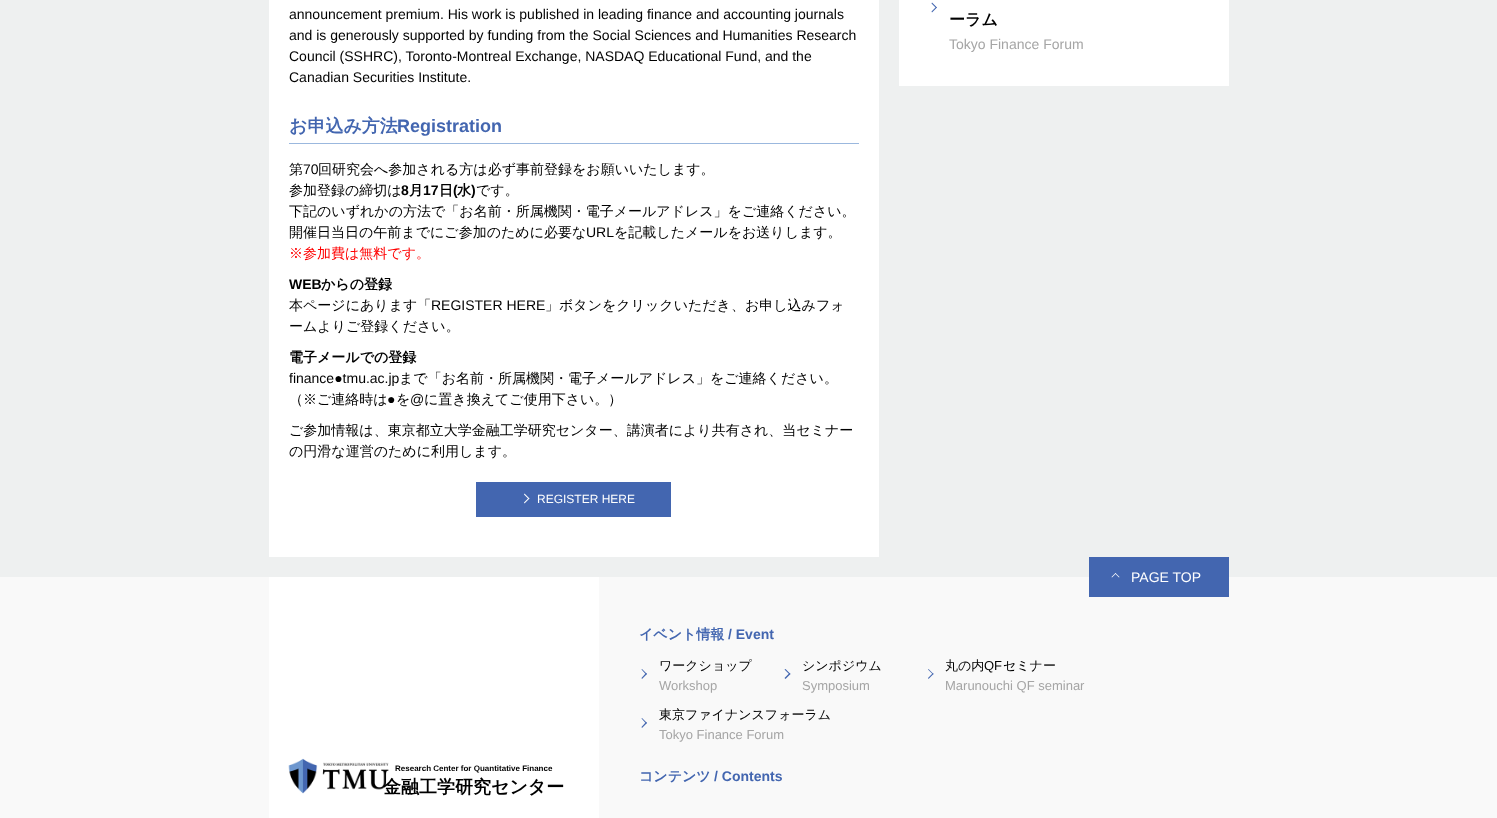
<svg xmlns="http://www.w3.org/2000/svg" width="1497" height="818" viewBox="0 0 1497 818">
  <rect width="100%" height="100%" fill="#eef0f0"/>
  <path d="M269 0h610v557H269z" fill="#fff"/>
  <path d="M289 143h570v1H289z" fill="#9bb8de"/>
  <path d="M476 482h195v35H476z" fill="#4366b0"/>
  <path d="M524.5 493.5L529.5 498.5L528.5 499L524 494.5Z" fill="#fff"/>
  <path d="M528.5 498L529.5 498.5L524.5 503.5L524 502.5Z" fill="#fff"/>
  <path d="M899 0h330v86H899z" fill="#fff"/>
  <path d="M932 2.5L937 7.5L936 8L931.5 3.5Z" fill="#4366b0"/>
  <path d="M936 7L937 7.5L932 12.5L931.5 11.5Z" fill="#4366b0"/>
  <path d="M0 577h1497v241H0z" fill="#f9f9f9"/>
  <path d="M1089 557h140v40H1089z" fill="#4366b0"/>
  <path d="M1111.5 577L1115.5 573L1116 573.5L1112 577.5Z" fill="#fff"/>
  <path d="M1115 573.5L1115.5 573L1119.5 577L1119 577.5Z" fill="#fff"/>
  <path d="M269 577h330v241H269z" fill="#fff"/>
  <image x="288" y="758" width="101" height="36" href="img/1.png"/>
  <path d="M642 669L647 674L646 674.5L641.5 669.5Z" fill="#4366b0"/>
  <path d="M646 673L647 674L642 679L641.5 678Z" fill="#4366b0"/>
  <path d="M785.5 669L790.5 674L789.5 674.5L784.5 669.5Z" fill="#4366b0"/>
  <path d="M789.5 673L790.5 674L785.5 679L784.5 678Z" fill="#4366b0"/>
  <path d="M928.5 669L933.5 674L933 674.5L928 669.5Z" fill="#4366b0"/>
  <path d="M933 673L933.5 674L928.5 679L928 678Z" fill="#4366b0"/>
  <path d="M642 718L647 723L646 723.5L641.5 718.5Z" fill="#4366b0"/>
  <path d="M646 722L647 723L642 728L641.5 727Z" fill="#4366b0"/>
  <g font-family="Liberation Sans" font-size="14" fill="#000">
    <text x="289" y="19">announcement premium. His work is published in leading finance and accounting journals</text>
    <text x="289" y="40">and is generously supported by funding from the Social Sciences and Humanities Research</text>
    <text x="289" y="61">Council (SSHRC), Toronto-Montreal Exchange, NASDAQ Educational Fund, and the</text>
    <text x="289" y="82">Canadian Securities Institute.</text>
  </g>
  <text x="289" y="132" font-family="WenQuanYi Zen Hei" font-size="18" font-weight="bold" fill="#4366b0">お申込み方法</text>
  <text x="397" y="132" font-family="Liberation Sans" font-size="18" font-weight="bold" fill="#4366b0">Registration</text>
  <text x="289" y="174" font-family="WenQuanYi Zen Hei" font-size="14" font-weight="500" fill="#000">第</text>
  <text x="303" y="174" font-family="Liberation Sans" font-size="14" fill="#000">70</text>
  <g font-family="WenQuanYi Zen Hei" font-size="14" font-weight="500" fill="#000">
    <text x="318" y="174">回研究会へ参加される方は必ず事前登録をお願いいたします。</text>
    <text x="289" y="195">参加登録の締切は</text>
  </g>
  <text x="401" y="195" font-family="Liberation Sans" font-size="14" font-weight="bold" fill="#000">8</text>
  <text x="409" y="195" font-family="WenQuanYi Zen Hei" font-size="14" font-weight="bold" fill="#000">月</text>
  <text x="423" y="195" font-family="Liberation Sans" font-size="14" font-weight="bold" fill="#000">17</text>
  <text x="439" y="195" font-family="WenQuanYi Zen Hei" font-size="14" font-weight="bold" fill="#000">日</text>
  <text x="453" y="195" font-family="Liberation Sans" font-size="14" font-weight="bold" fill="#000">(</text>
  <text x="457" y="195" font-family="WenQuanYi Zen Hei" font-size="14" font-weight="bold" fill="#000">水</text>
  <text x="471" y="195" font-family="Liberation Sans" font-size="14" font-weight="bold" fill="#000">)</text>
  <g font-family="WenQuanYi Zen Hei" font-size="14" font-weight="500" fill="#000">
    <text x="476" y="195">です。</text>
    <text x="289" y="216">下記のいずれかの方法で「お名前・所属機関・電子メールアドレス」をご連絡ください。</text>
    <text x="289" y="237">開催日当日の午前までにご参加のために必要な</text>
  </g>
  <text x="586" y="237" font-family="Liberation Sans" font-size="14" fill="#000">URL</text>
  <text x="614" y="237" font-family="WenQuanYi Zen Hei" font-size="14" font-weight="500" fill="#000">を記載したメールをお送りします。</text>
  <text x="289" y="258" font-family="WenQuanYi Zen Hei" font-size="14" font-weight="500" fill="#f00">※参加費は無料です。</text>
  <text x="289" y="289" font-family="Liberation Sans" font-size="14" font-weight="bold" fill="#000">WEB</text>
  <text x="321" y="289" font-family="WenQuanYi Zen Hei" font-size="14" font-weight="bold" fill="#000">からの登録</text>
  <text x="289" y="310" font-family="WenQuanYi Zen Hei" font-size="14" font-weight="500" fill="#000">本ページにあります「</text>
  <text x="431" y="310" font-family="Liberation Sans" font-size="14" fill="#000">REGISTER HERE</text>
  <g font-family="WenQuanYi Zen Hei" font-size="14" font-weight="500" fill="#000">
    <text x="545" y="310">」ボタンをクリックいただき、お申し込みフォ</text>
    <text x="289" y="331">ームよりご登録ください。</text>
  </g>
  <text x="289" y="362" font-family="WenQuanYi Zen Hei" font-size="14" font-weight="bold" fill="#000">電子メールでの登録</text>
  <text x="289" y="383" font-family="Liberation Sans" font-size="14" fill="#000">finance●tmu.ac.jp</text>
  <g font-family="WenQuanYi Zen Hei" font-size="14" font-weight="500" fill="#000">
    <text x="399" y="383">まで「お名前・所属機関・電子メールアドレス」をご連絡ください。</text>
    <text x="289" y="404">（※ご連絡時は</text>
  </g>
  <text x="387" y="404" font-family="Liberation Sans" font-size="14" fill="#000">●</text>
  <text x="396" y="404" font-family="WenQuanYi Zen Hei" font-size="14" font-weight="500" fill="#000">を</text>
  <text x="410" y="404" font-family="Liberation Sans" font-size="14" fill="#000">@</text>
  <g font-family="WenQuanYi Zen Hei" font-size="14" font-weight="500" fill="#000">
    <text x="424" y="404">に置き換えてご使用下さい。）</text>
    <text x="289" y="435">ご参加情報は、東京都立大学金融工学研究センター、講演者により共有され、当セミナー</text>
    <text x="289" y="456">の円滑な運営のために利用します。</text>
  </g>
  <text x="537" y="503" font-family="Liberation Sans" font-size="12" fill="#fff">REGISTER HERE</text>
  <text x="949" y="25" font-family="WenQuanYi Zen Hei" font-size="16" font-weight="bold" fill="#000">ーラム</text>
  <text x="949" y="49" font-family="Liberation Sans" font-size="14" fill="#a5a5a5">Tokyo Finance Forum</text>
  <text x="1131" y="582" font-family="Liberation Sans" font-size="14" fill="#fff">PAGE TOP</text>
  <text x="395" y="771" font-family="Liberation Sans" font-size="8" font-weight="bold" fill="#000">Research Center for Quantitative Finance</text>
  <text x="383" y="793" font-family="WenQuanYi Zen Hei" font-size="18" font-weight="bold" fill="#000">金融工学研究センター</text>
  <text x="639" y="639" font-family="WenQuanYi Zen Hei" font-size="14" font-weight="bold" fill="#4366b0">イベント情報</text>
  <text x="728" y="639" font-family="Liberation Sans" font-size="14" font-weight="bold" fill="#4366b0">/ Event</text>
  <text x="659" y="670" font-family="WenQuanYi Zen Hei" font-size="13" font-weight="500" fill="#000">ワークショップ</text>
  <text x="659" y="690" font-family="Liberation Sans" font-size="13" fill="#a5a5a5">Workshop</text>
  <text x="802" y="670" font-family="WenQuanYi Zen Hei" font-size="13" font-weight="500" fill="#000">シンポジウム</text>
  <text x="802" y="690" font-family="Liberation Sans" font-size="13" fill="#a5a5a5">Symposium</text>
  <text x="945" y="670" font-family="WenQuanYi Zen Hei" font-size="13" font-weight="500" fill="#000">丸の内</text>
  <text x="984" y="670" font-family="Liberation Sans" font-size="13" fill="#000">QF</text>
  <text x="1003" y="670" font-family="WenQuanYi Zen Hei" font-size="13" font-weight="500" fill="#000">セミナー</text>
  <text x="945" y="690" font-family="Liberation Sans" font-size="13" fill="#a5a5a5">Marunouchi QF seminar</text>
  <text x="659" y="719" font-family="WenQuanYi Zen Hei" font-size="13" font-weight="500" fill="#000">東京ファイナンスフォーラム</text>
  <text x="659" y="739" font-family="Liberation Sans" font-size="13" fill="#a5a5a5">Tokyo Finance Forum</text>
  <text x="639" y="781" font-family="WenQuanYi Zen Hei" font-size="14" font-weight="bold" fill="#4366b0">コンテンツ</text>
  <text x="714" y="781" font-family="Liberation Sans" font-size="14" font-weight="bold" fill="#4366b0">/ Contents</text>
</svg>
